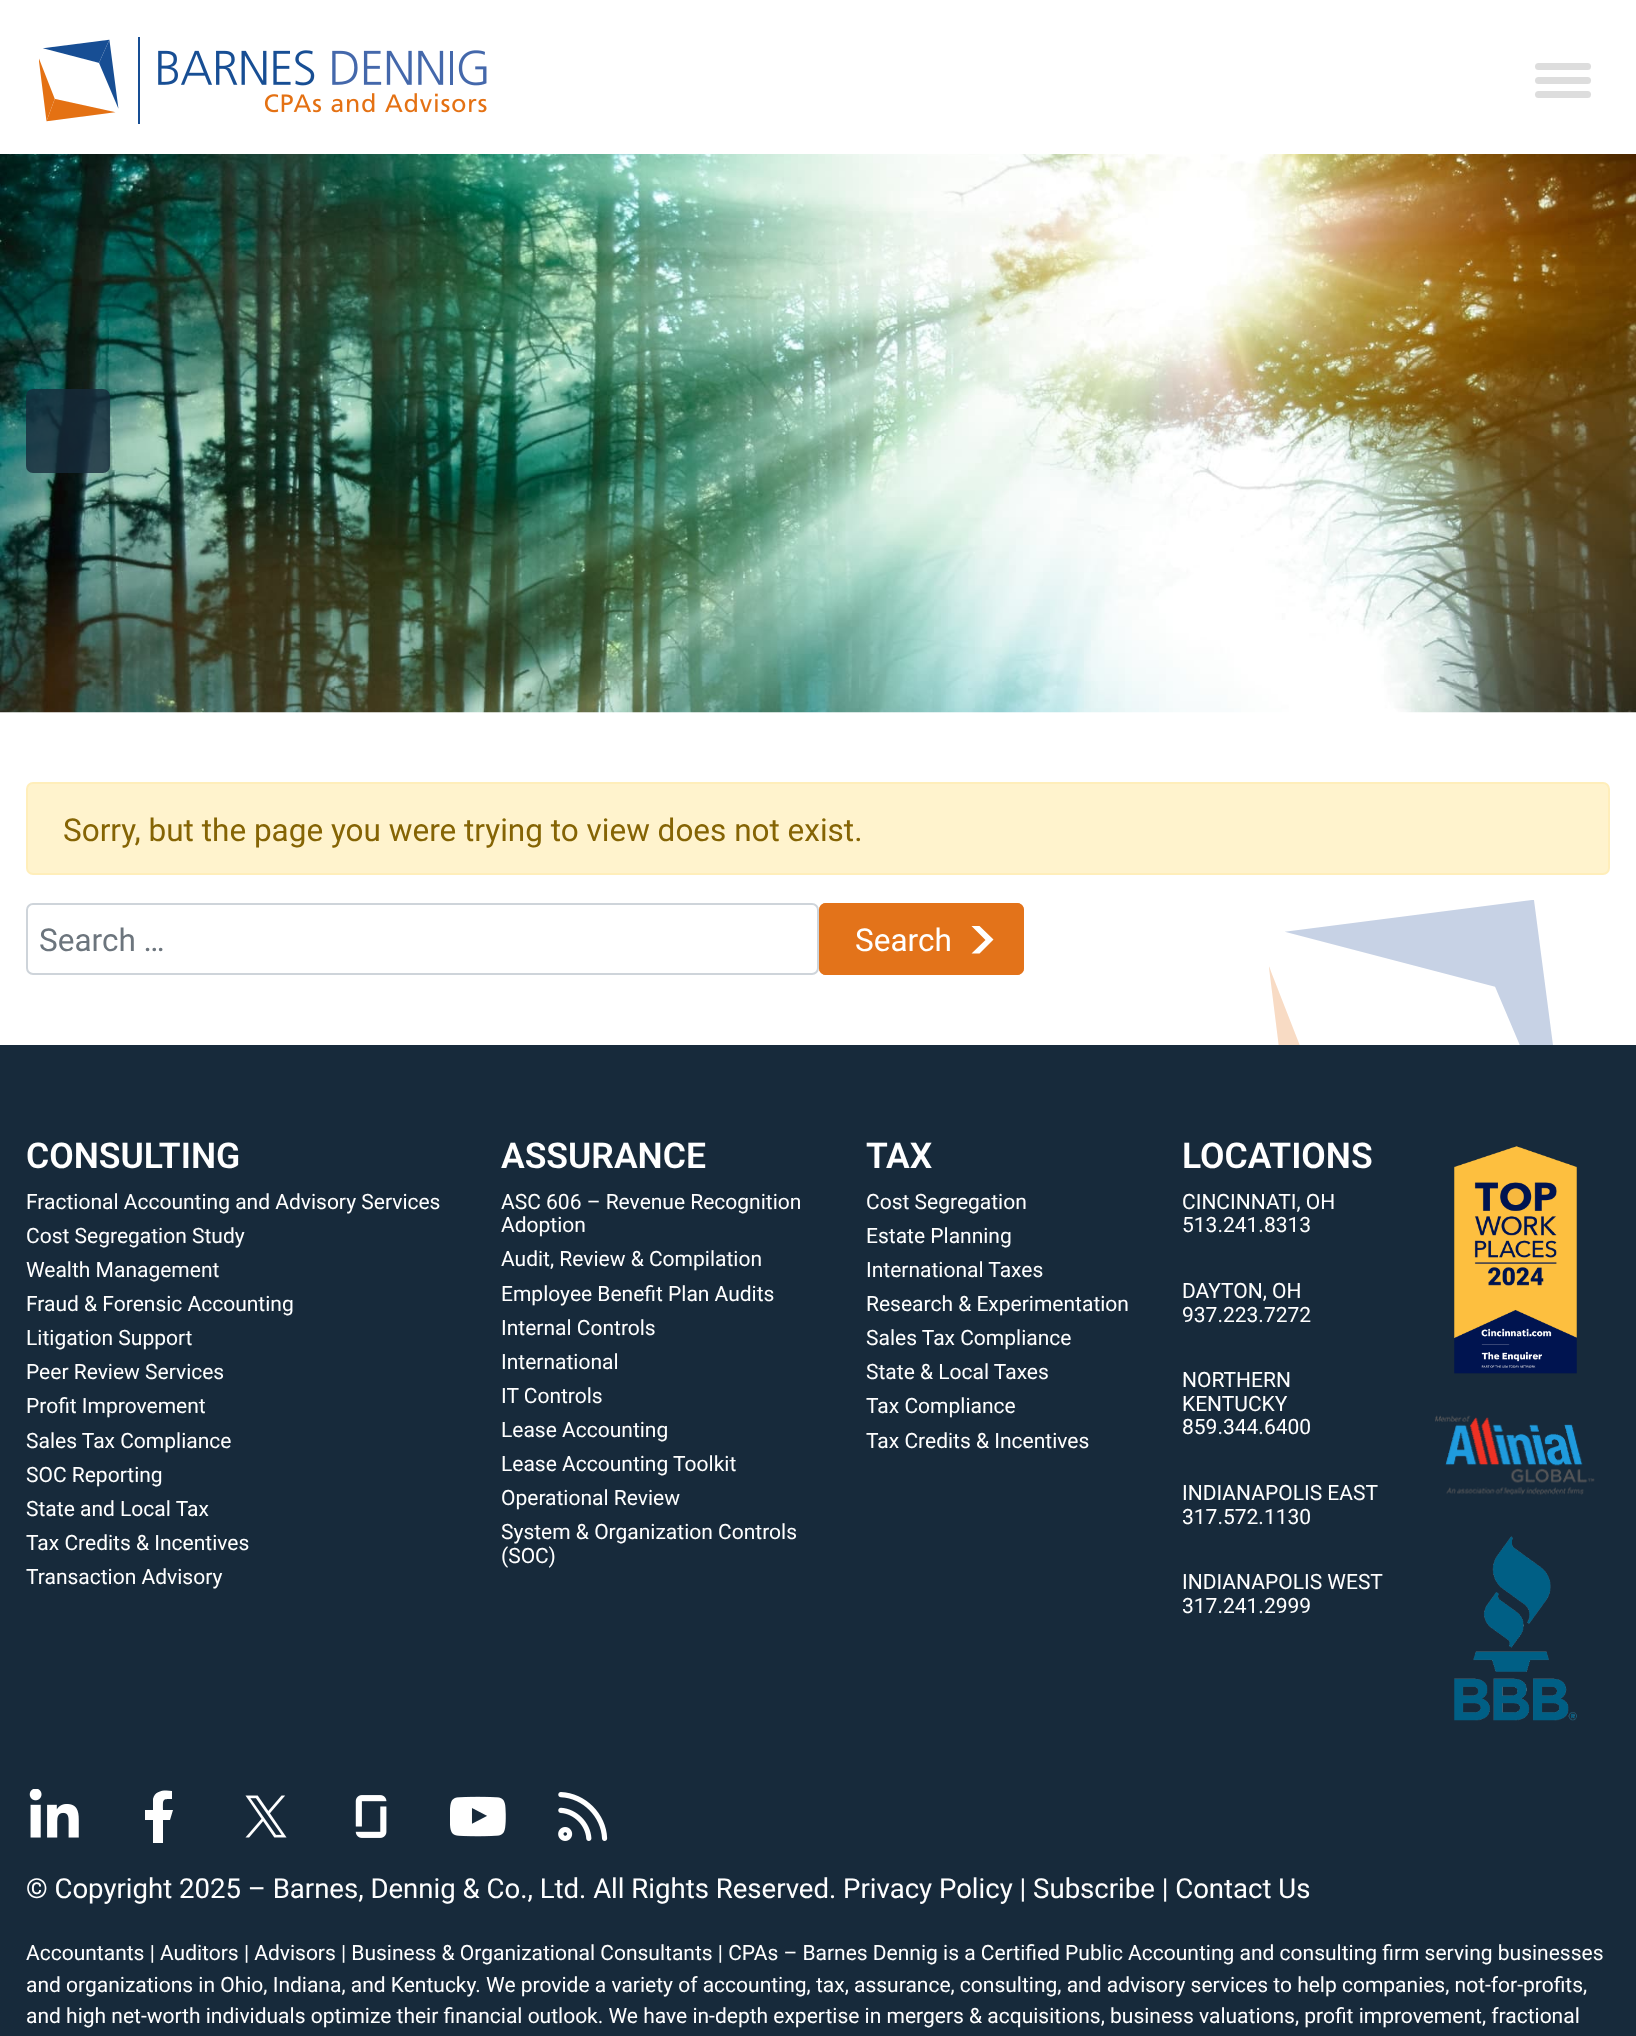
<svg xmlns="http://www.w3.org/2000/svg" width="1636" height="2036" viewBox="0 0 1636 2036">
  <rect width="100%" height="100%" fill="#fff"/>
  <image x="1269" y="900" width="284" height="145" href="img/1.png"/>
  <image x="39" y="37" width="448" height="87" href="img/2.png"/>
  <rect x="1535" y="63" width="56" height="7" rx="3.5" fill="#ddd"/>
  <rect x="1535" y="77" width="56" height="7" rx="3.5" fill="#ddd"/>
  <rect x="1535" y="91" width="56" height="7" rx="3.5" fill="#ddd"/>
  <image x="0" y="154" width="1636" height="559" href="img/3.png"/>
  <rect x="26" y="389" width="84" height="84" rx="7" fill="#172a3bcc"/>
  <rect x="27" y="783" width="1582" height="91" rx="6" fill="#fff3cd" stroke="#ffeeba" stroke-width="2"/>
  <rect x="27" y="904" width="791" height="70" rx="6" fill="none" stroke="#ced4da" stroke-width="2"/>
  <rect x="819" y="903" width="205" height="72" rx="7" fill="#e3731a"/>
  <path d="M979.5 926H971.5L985.5 940L971.5 953.5H979.5L993.5 939.5Z" fill="#fff"/>
  <rect x="820" y="904" width="203" height="70" rx="6" fill="none" stroke="#e3731a" stroke-width="2"/>
  <path d="M0 1045h1636v991H0z" fill="#172a3b"/>
  <image x="1454" y="1146" width="123" height="228" href="img/4.png"/>
  <image x="1435" y="1415" width="160" height="80" href="img/5.png"/>
  <image x="1454" y="1536" width="123" height="185" href="img/6.png"/>
  <image x="29" y="1789" width="50" height="49" href="img/7.png"/>
  <path d="M153 1843V1820H145V1810H153V1799C155 1790 165 1790 172 1791V1799C162 1799 163 1799 163 1810H173L170 1820H163V1843Z" fill="#fff"/>
  <image x="245" y="1795" width="42" height="43" href="img/8.png"/>
  <image x="355" y="1795" width="32" height="43" href="img/9.png"/>
  <image x="450" y="1796" width="56" height="41" href="img/10.png"/>
  <image x="558" y="1792" width="50" height="49" href="img/11.png"/>
  <text x="63" y="841" font-family="Roboto" font-size="31.5" fill="#856404">Sorry, but the page you were trying to view does not exist.</text>
  <text x="39" y="951" font-family="Roboto" font-size="31.5" fill="#6c757d">Search …</text>
  <text x="855" y="951" font-family="Roboto" font-size="31.5" fill="#fff">Search</text>
  <text x="26" y="1168" font-family="Roboto" font-size="35.5" font-weight="600" fill="#fff">CONSULTING</text>
  <g font-family="Roboto" font-size="21" fill="#fff">
    <text x="26" y="1209">Fractional Accounting and Advisory Services</text>
    <text x="26" y="1243">Cost Segregation Study</text>
    <text x="26" y="1277">Wealth Management</text>
    <text x="26" y="1311">Fraud &amp; Forensic Accounting</text>
    <text x="26" y="1345">Litigation Support</text>
    <text x="26" y="1379">Peer Review Services</text>
    <text x="26" y="1413">Profit Improvement</text>
    <text x="26" y="1448">Sales Tax Compliance</text>
    <text x="26" y="1482">SOC Reporting</text>
    <text x="26" y="1516">State and Local Tax</text>
    <text x="26" y="1550">Tax Credits &amp; Incentives</text>
    <text x="26" y="1584">Transaction Advisory</text>
  </g>
  <text x="501" y="1168" font-family="Roboto" font-size="35.5" font-weight="600" fill="#fff">ASSURANCE</text>
  <g font-family="Roboto" font-size="21" fill="#fff">
    <text x="501" y="1209">ASC 606 – Revenue Recognition</text>
    <text x="501" y="1232">Adoption</text>
    <text x="501" y="1266">Audit, Review &amp; Compilation</text>
    <text x="501" y="1301">Employee Benefit Plan Audits</text>
    <text x="501" y="1335">Internal Controls</text>
    <text x="501" y="1369">International</text>
    <text x="501" y="1403">IT Controls</text>
    <text x="501" y="1437">Lease Accounting</text>
    <text x="501" y="1471">Lease Accounting Toolkit</text>
    <text x="501" y="1505">Operational Review</text>
    <text x="501" y="1539">System &amp; Organization Controls</text>
    <text x="501" y="1563">(SOC)</text>
  </g>
  <text x="866" y="1168" font-family="Roboto" font-size="35.5" font-weight="600" fill="#fff">TAX</text>
  <g font-family="Roboto" font-size="21" fill="#fff">
    <text x="866" y="1209">Cost Segregation</text>
    <text x="866" y="1243">Estate Planning</text>
    <text x="866" y="1277">International Taxes</text>
    <text x="866" y="1311">Research &amp; Experimentation</text>
    <text x="866" y="1345">Sales Tax Compliance</text>
    <text x="866" y="1379">State &amp; Local Taxes</text>
    <text x="866" y="1413">Tax Compliance</text>
    <text x="866" y="1448">Tax Credits &amp; Incentives</text>
  </g>
  <text x="1182" y="1168" font-family="Roboto" font-size="35.5" font-weight="600" fill="#fff">LOCATIONS</text>
  <g font-family="Roboto" font-size="21" fill="#fff">
    <text x="1182" y="1209">CINCINNATI, OH</text>
    <text x="1182" y="1232">513.241.8313</text>
    <text x="1182" y="1298">DAYTON, OH</text>
    <text x="1182" y="1322">937.223.7272</text>
    <text x="1182" y="1387">NORTHERN</text>
    <text x="1182" y="1411">KENTUCKY</text>
    <text x="1182" y="1434">859.344.6400</text>
    <text x="1182" y="1500">INDIANAPOLIS EAST</text>
    <text x="1182" y="1524">317.572.1130</text>
    <text x="1182" y="1589">INDIANAPOLIS WEST</text>
    <text x="1182" y="1613">317.241.2999</text>
  </g>
  <text x="26" y="1898" font-family="Roboto" font-size="27.55" fill="#fff">© Copyright 2025 – Barnes, Dennig &amp; Co., Ltd. All Rights Reserved. Privacy Policy | Subscribe | Contact Us</text>
  <g font-family="Roboto" font-size="21" fill="#fff">
    <text x="26" y="1960">Accountants | Auditors | Advisors | Business &amp; Organizational Consultants | CPAs – Barnes Dennig is a Certified Public Accounting and consulting firm serving businesses</text>
    <text x="26" y="1992">and organizations in Ohio, Indiana, and Kentucky. We provide a variety of accounting, tax, assurance, consulting, and advisory services to help companies, not-for-profits,</text>
    <text x="26" y="2023">and high net-worth individuals optimize their financial outlook. We have in-depth expertise in mergers &amp; acquisitions, business valuations, profit improvement, fractional</text>
  </g>
</svg>
